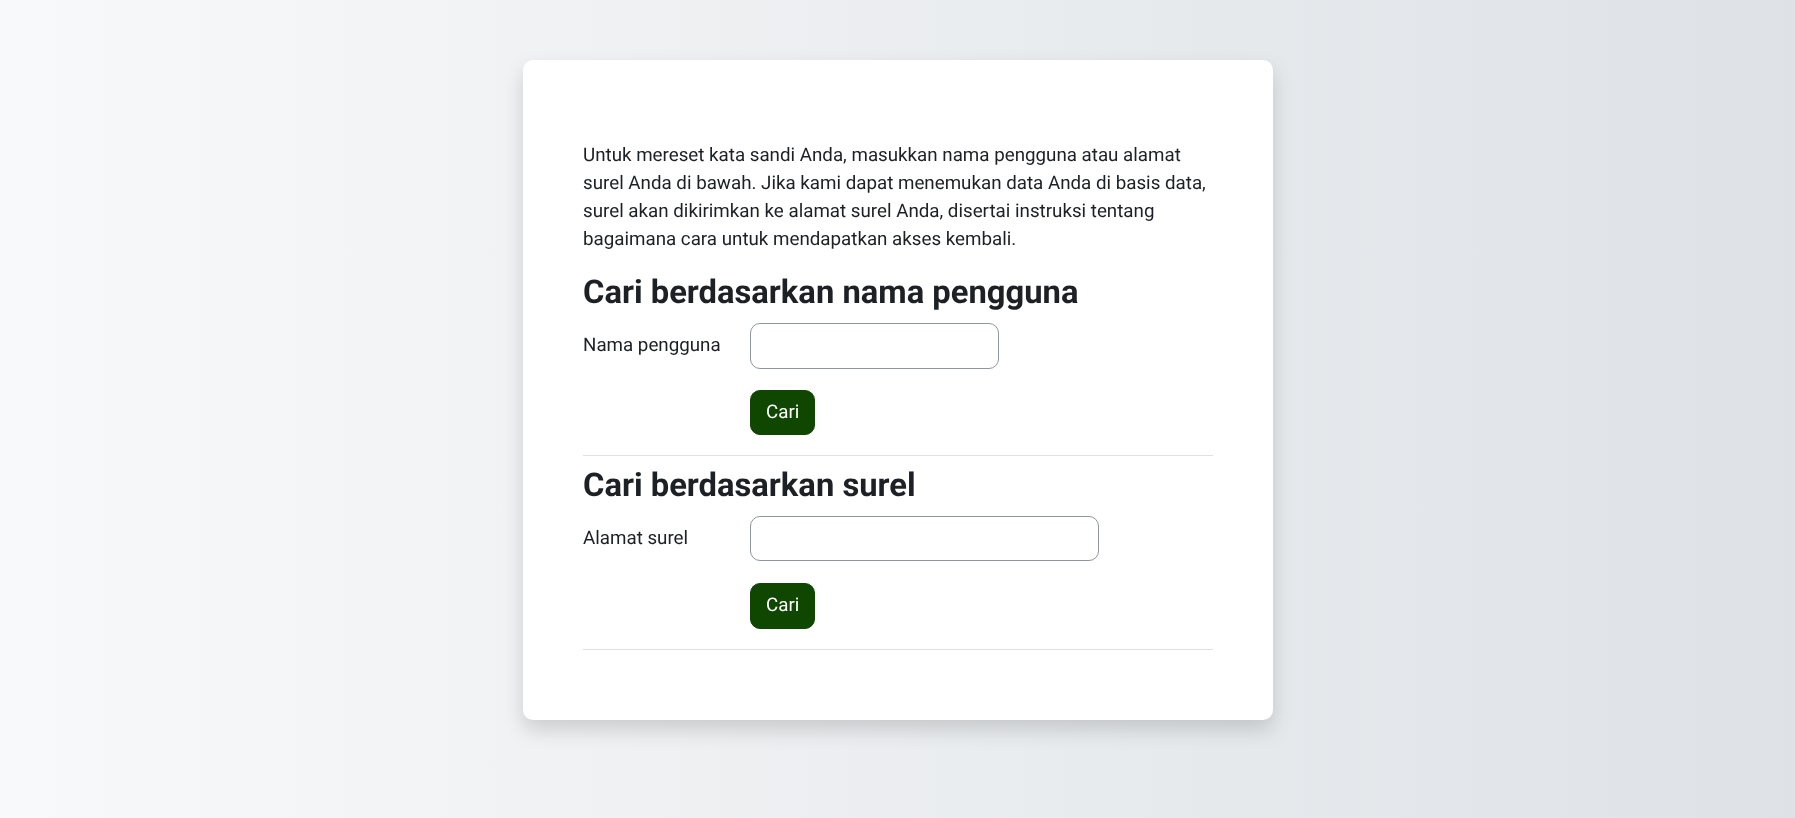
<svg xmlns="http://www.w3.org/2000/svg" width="1795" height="818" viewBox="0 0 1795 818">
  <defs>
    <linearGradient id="g1" gradientUnits="userSpaceOnUse" x1="0" y1="409" x2="1795" y2="409"><stop offset="0" stop-color="#f8f9fa"/><stop offset="1" stop-color="#dee2e6"/></linearGradient>
  </defs>
  <rect width="100%" height="100%" fill="#fff"/>
  <path d="M0 0h1795v818H0z" fill="url(#g1)"/>
  <rect x="523" y="70" width="750" height="660" rx="10" fill="#00000026" filter="blur(10px)"/>
  <rect x="523" y="60" width="750" height="660" rx="10" fill="#fff"/>
  <path d="M583 455h630v1H583z" fill="#dee2e6"/>
  <rect x="750.5" y="323.5" width="248" height="45" rx="9.5" fill="none" stroke="#8f959e"/>
  <rect x="750.5" y="390.5" width="64" height="44" rx="9.5" fill="#0f4600" stroke="#0f4600"/>
  <path d="M583 649h630v1H583z" fill="#dee2e6"/>
  <rect x="750.5" y="516.5" width="348" height="44" rx="9.5" fill="none" stroke="#8f959e"/>
  <rect x="750.5" y="583.5" width="64" height="45" rx="9.5" fill="#0f4600" stroke="#0f4600"/>
  <g font-family="Roboto" font-size="18.75" fill="#1d2125">
    <text x="583" y="161">Untuk mereset kata sandi Anda, masukkan nama pengguna atau alamat</text>
    <text x="583" y="189">surel Anda di bawah. Jika kami dapat menemukan data Anda di basis data,</text>
    <text x="583" y="217">surel akan dikirimkan ke alamat surel Anda, disertai instruksi tentang</text>
    <text x="583" y="245">bagaimana cara untuk mendapatkan akses kembali.</text>
  </g>
  <text x="583" y="303" font-family="Roboto" font-size="32.75" font-weight="bold" fill="#1d2125">Cari berdasarkan nama pengguna</text>
  <text x="583" y="351" font-family="Roboto" font-size="18.75" fill="#1d2125">Nama pengguna</text>
  <text x="766" y="418" font-family="Roboto" font-size="18.75" fill="#fff">Cari</text>
  <text x="583" y="496" font-family="Roboto" font-size="32.75" font-weight="bold" fill="#1d2125">Cari berdasarkan surel</text>
  <text x="583" y="544" font-family="Roboto" font-size="18.75" fill="#1d2125">Alamat surel</text>
  <text x="766" y="611" font-family="Roboto" font-size="18.75" fill="#fff">Cari</text>
</svg>
